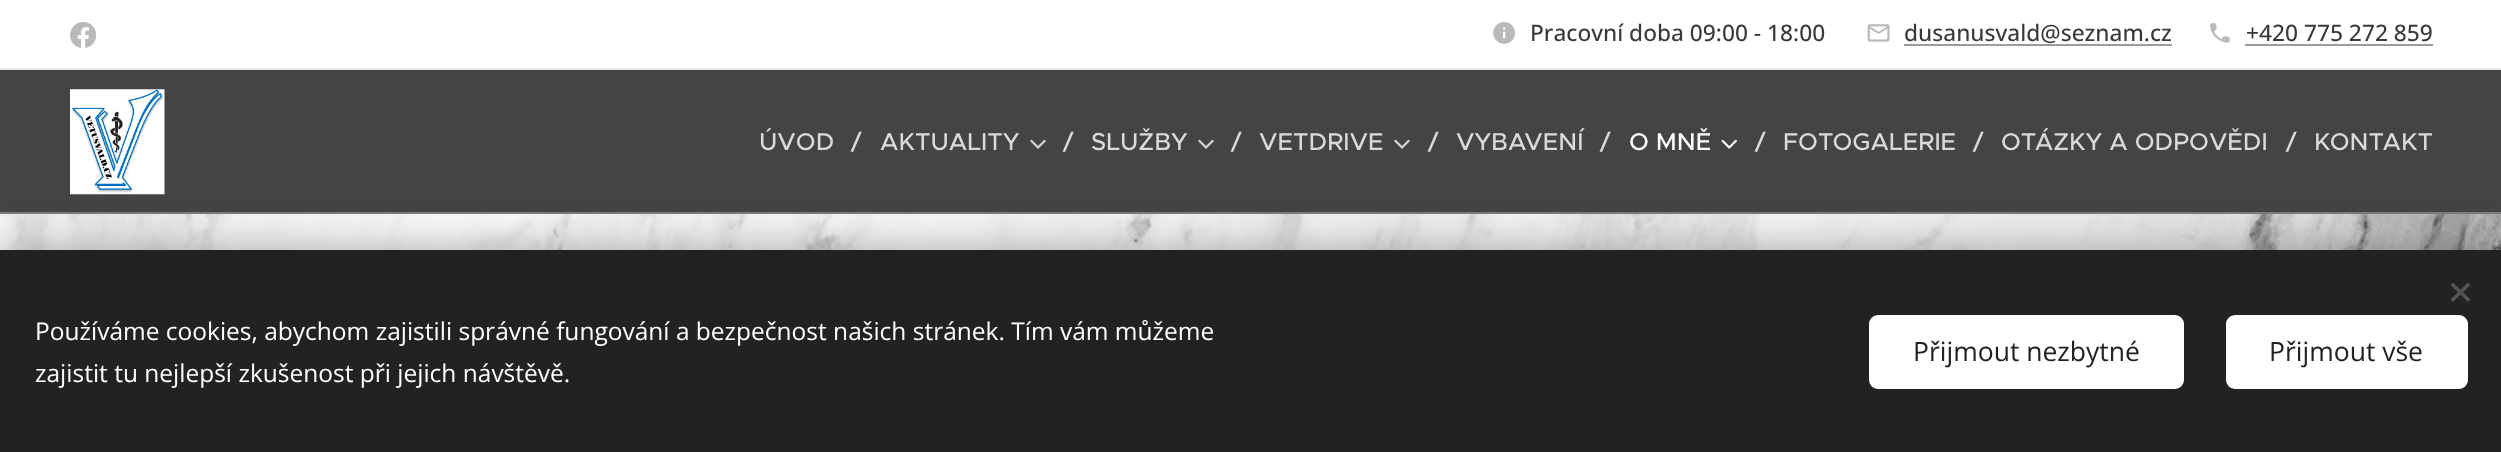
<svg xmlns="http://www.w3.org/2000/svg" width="2501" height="452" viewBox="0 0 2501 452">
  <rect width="100%" height="100%" fill="#fff"/>
  <image x="70" y="22" width="26" height="26" href="img/1.png"/>
  <image x="1493" y="22" width="22" height="22" href="img/2.png"/>
  <image x="1867" y="24" width="23" height="18" href="img/3.png"/>
  <path d="M1904 44h268v2H1904z" fill="#9c9c9c"/>
  <image x="2210" y="23" width="20" height="20" href="img/4.png"/>
  <path d="M2245 44h188v2H2245z" fill="#9c9c9c"/>
  <path d="M0 68h2501v2H0z" fill="#e8e8e8"/>
  <path d="M0 70h2501v142H0z" fill="#444"/>
  <image x="70" y="89" width="95" height="106" href="img/5.png"/>
  <image x="1030" y="139" width="16" height="10" href="img/6.png"/>
  <image x="1198" y="139" width="16" height="10" href="img/6.png"/>
  <image x="1394" y="139" width="16" height="10" href="img/6.png"/>
  <image x="1721" y="139" width="16" height="10" href="img/7.png"/>
  <path d="M0 212h2501v2H0z" fill="#7c7c7c"/>
  <image x="0" y="214" width="2501" height="36" href="img/8.png"/>
  <path d="M0 250h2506v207H0z" fill="#00000054" filter="blur(22px)"/>
  <path d="M0 250h2501v202H0z" fill="#222"/>
  <path d="M2450.5 299.5L2468 282.5L2470.5 285L2453 302Z" fill="#555"/>
  <path d="M2453 282.5L2470.5 299.5L2468 302L2450.5 285Z" fill="#555"/>
  <rect x="1869" y="315" width="315" height="74" rx="9" fill="#fff"/>
  <rect x="2226" y="315" width="242" height="74" rx="9" fill="#fff"/>
  <g font-family="Open Sans" font-size="22.75" font-weight="500" fill="#393939">
    <text x="1530" y="41">Pracovní doba 09:00 - 18:00</text>
    <text x="1904" y="41">dusanusvald@seznam.cz</text>
    <text x="2246" y="41">+420 775 272 859</text>
  </g>
  <g font-family="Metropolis" font-size="24.5" font-weight="500" fill="#dadada">
    <text x="759" y="150">ÚVOD</text>
    <text x="851" y="150">/</text>
    <text x="880" y="150">AKTUALITY</text>
    <text x="1063" y="150">/</text>
    <text x="1091" y="150">SLUŽBY</text>
    <text x="1231" y="150">/</text>
    <text x="1259" y="150">VETDRIVE</text>
    <text x="1428" y="150">/</text>
    <text x="1456" y="150">VYBAVENÍ</text>
    <text x="1600" y="150">/</text>
  </g>
  <text x="1629" y="150" font-family="Metropolis" font-size="24.5" font-weight="500" fill="#fff">O MNĚ</text>
  <g font-family="Metropolis" font-size="24.5" font-weight="500" fill="#dadada">
    <text x="1755" y="150">/</text>
    <text x="1783" y="150">FOTOGALERIE</text>
    <text x="1973" y="150">/</text>
    <text x="2001" y="150">OTÁZKY A ODPOVĚDI</text>
    <text x="2286" y="150">/</text>
    <text x="2314" y="150">KONTAKT</text>
  </g>
  <g font-family="Open Sans" font-size="24.5" fill="#fff">
    <text x="35" y="340">Používáme cookies, abychom zajistili správné fungování a bezpečnost našich stránek. Tím vám můžeme</text>
    <text x="35" y="382">zajistit tu nejlepší zkušenost při jejich návštěvě.</text>
  </g>
  <g font-family="Open Sans" font-size="26.5" fill="#222">
    <text x="1913" y="361">Přijmout nezbytné</text>
    <text x="2269" y="361">Přijmout vše</text>
  </g>
</svg>
